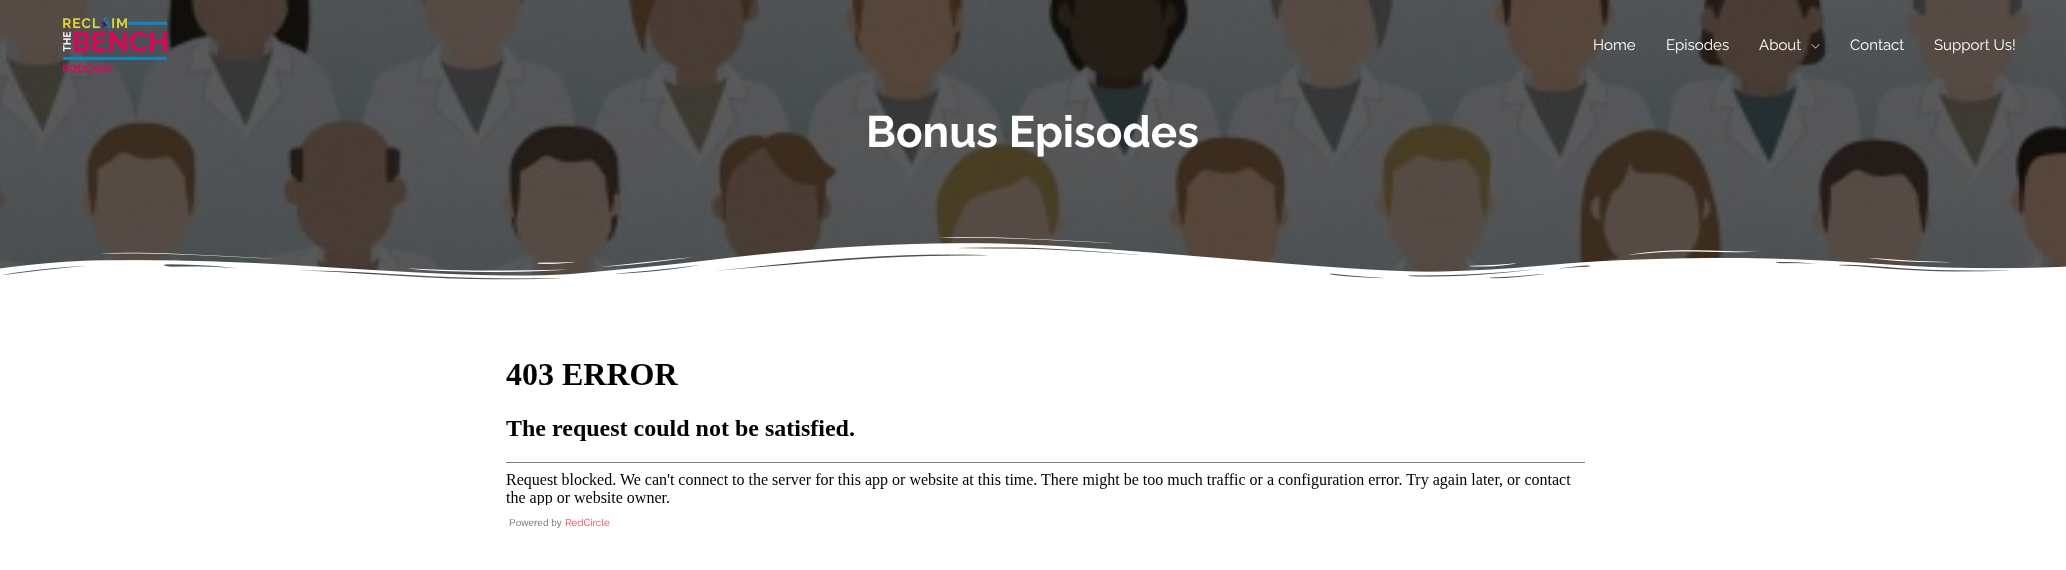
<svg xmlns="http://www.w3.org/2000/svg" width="2066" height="570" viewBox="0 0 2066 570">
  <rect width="100%" height="100%" fill="#0a0a0a"/>
  <image x="0" y="0" width="2066" height="280" href="img/3.png"/>
  <image x="63" y="16" width="105" height="57" href="img/1.png"/>
  <image x="1811" y="44" width="9" height="5" href="img/2.png"/>
  <image x="0" y="237" width="2066" height="48" href="img/4.png"/>
  <path d="M0 285h2066v285H0z" fill="#fff"/>
  <image x="506" y="364" width="1079" height="141" href="img/5.png"/>
  <g font-family="Raleway" font-size="15" fill="#fff">
    <text x="1593" y="50">Home</text>
    <text x="1666" y="50">Episodes</text>
    <text x="1759" y="50">About</text>
    <text x="1850" y="50">Contact</text>
    <text x="1934" y="50">Support Us!</text>
  </g>
  <text x="866" y="147" font-family="Raleway" font-size="44" font-weight="bold" fill="#fff">Bonus Episodes</text>
  <text x="509" y="526" font-family="Liberation Sans" font-size="10" fill="#808080">Powered by</text>
  <text x="565" y="526" font-family="Raleway" font-size="10" fill="#ea404d">RedCircle</text>
</svg>
